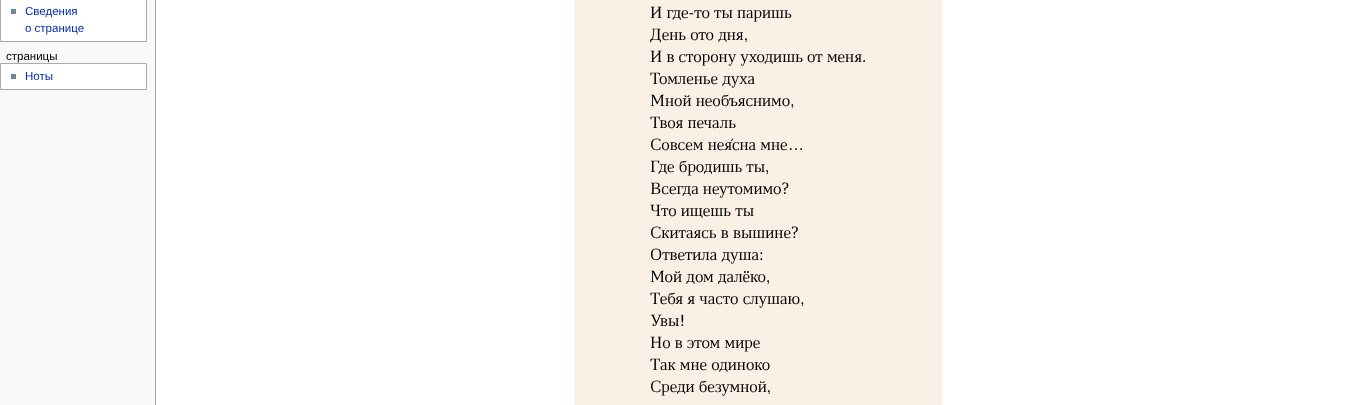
<svg xmlns="http://www.w3.org/2000/svg" width="1360" height="405" viewBox="0 0 1360 405">
  <rect width="100%" height="100%" fill="#f9f9f9"/>
  <path d="M0.5 -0.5h146v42H0.5z" fill="#fff" stroke="#aaa"/>
  <path d="M11 9h5v5H11z" fill="#638c9c"/>
  <path d="M0.5 63.5h146v26H0.5z" fill="#fff" stroke="#aaa"/>
  <path d="M11 74h5v5H11z" fill="#638c9c"/>
  <path d="M156 0h1204v405H156z" fill="#fff"/>
  <path d="M155 0h1v405H155z" fill="#aaa"/>
  <path d="M574 0h368v405H574z" fill="#faf0e6"/>
  <g font-family="Liberation Sans" font-size="11.5" fill="#002bb8">
    <text x="25" y="15">Сведения</text>
    <text x="25" y="32">о странице</text>
  </g>
  <text x="6" y="60" font-family="Liberation Sans" font-size="11.5" fill="#000">страницы</text>
  <text x="25" y="80" font-family="Liberation Sans" font-size="11.5" fill="#002bb8">Ноты</text>
  <g font-family="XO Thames" font-size="16.9" fill="#000">
    <text x="650" y="18">И где-то ты паришь</text>
    <text x="650" y="40">День ото дня,</text>
    <text x="650" y="62">И в сторону уходишь от меня.</text>
    <text x="650" y="84">Томленье духа</text>
    <text x="650" y="106">Мной необъяснимо,</text>
    <text x="650" y="128">Твоя печаль</text>
    <text x="650" y="150">Совсем нея́сна мне…</text>
    <text x="650" y="172">Где бродишь ты,</text>
    <text x="650" y="194">Всегда неутомимо?</text>
    <text x="650" y="216">Что ищешь ты</text>
    <text x="650" y="238">Скитаясь в вышине?</text>
    <text x="650" y="260">Ответила душа:</text>
    <text x="650" y="282">Мой дом далёко,</text>
    <text x="650" y="304">Тебя я часто слушаю,</text>
    <text x="650" y="326">Увы!</text>
    <text x="650" y="348">Но в этом мире</text>
    <text x="650" y="370">Так мне одиноко</text>
    <text x="650" y="392">Среди безумной,</text>
  </g>
</svg>
